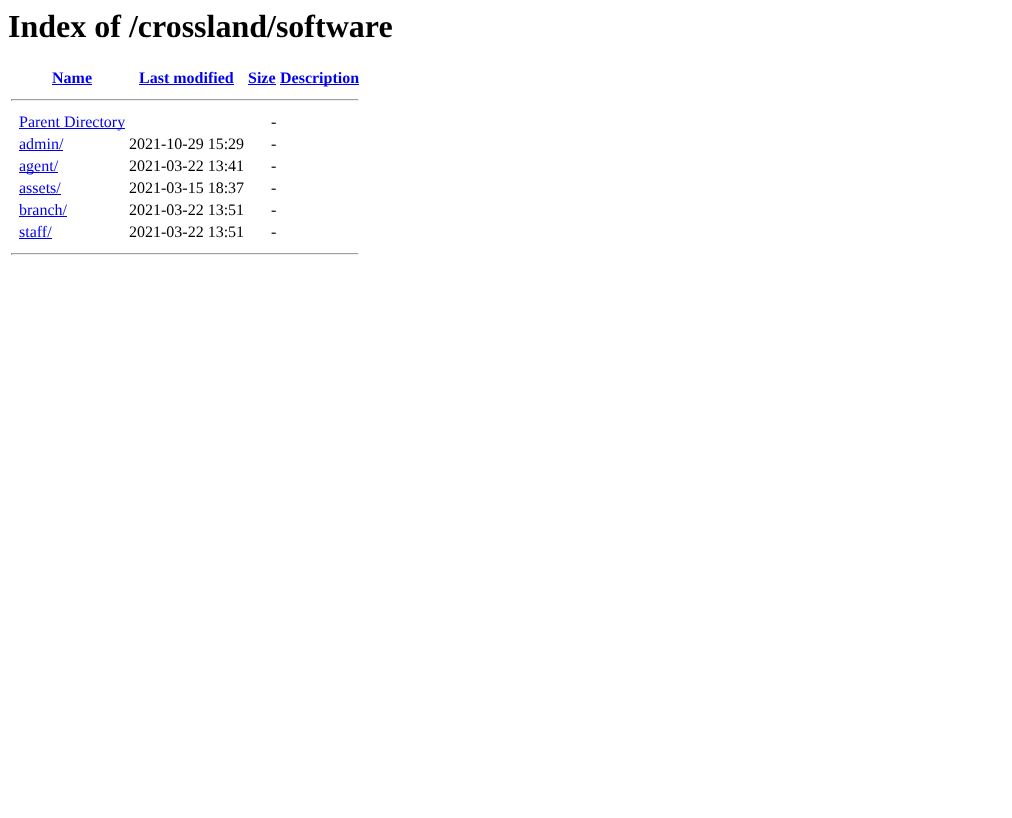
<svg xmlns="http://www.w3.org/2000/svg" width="1012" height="818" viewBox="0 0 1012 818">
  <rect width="100%" height="100%" fill="#fff"/>
  <path d="M52 84h40v1H52z" fill="#00e"/>
  <path d="M139 84h95v1H139z" fill="#00e"/>
  <path d="M248 84h28v1H248z" fill="#00e"/>
  <path d="M280 84h79v1H280z" fill="#00e"/>
  <path d="M11 99h348v1H11z" fill="#9f9f9f"/>
  <path d="M358 99h1v2H358z" fill="#eee"/>
  <path d="M11 100h348v1H11z" fill="#eee"/>
  <path d="M11 99h1v2H11z" fill="#9f9f9f"/>
  <path d="M19 128h106v1H19z" fill="#00e"/>
  <path d="M19 150h44v1H19z" fill="#00e"/>
  <path d="M19 172h39v1H19z" fill="#00e"/>
  <path d="M19 194h42v1H19z" fill="#00e"/>
  <path d="M19 216h48v1H19z" fill="#00e"/>
  <path d="M19 238h33v1H19z" fill="#00e"/>
  <path d="M11 253h348v1H11z" fill="#9f9f9f"/>
  <path d="M358 253h1v2H358z" fill="#eee"/>
  <path d="M11 254h348v1H11z" fill="#eee"/>
  <path d="M11 253h1v2H11z" fill="#9f9f9f"/>
  <text x="8" y="37" font-family="Liberation Serif" font-size="32" font-weight="bold" fill="#000">Index of /crossland/software</text>
  <g font-family="Liberation Serif" font-size="16" font-weight="bold" fill="#00e">
    <text x="52" y="83">Name</text>
    <text x="139" y="83">Last modified</text>
    <text x="248" y="83">Size</text>
    <text x="280" y="83">Description</text>
  </g>
  <text x="19" y="127" font-family="Liberation Serif" font-size="16" fill="#00e">Parent Directory</text>
  <text x="271" y="127" font-family="Liberation Serif" font-size="16" fill="#000">-</text>
  <text x="19" y="149" font-family="Liberation Serif" font-size="16" fill="#00e">admin/</text>
  <g font-family="Liberation Serif" font-size="16" fill="#000">
    <text x="129" y="149">2021-10-29 15:29</text>
    <text x="271" y="149">-</text>
  </g>
  <text x="19" y="171" font-family="Liberation Serif" font-size="16" fill="#00e">agent/</text>
  <g font-family="Liberation Serif" font-size="16" fill="#000">
    <text x="129" y="171">2021-03-22 13:41</text>
    <text x="271" y="171">-</text>
  </g>
  <text x="19" y="193" font-family="Liberation Serif" font-size="16" fill="#00e">assets/</text>
  <g font-family="Liberation Serif" font-size="16" fill="#000">
    <text x="129" y="193">2021-03-15 18:37</text>
    <text x="271" y="193">-</text>
  </g>
  <text x="19" y="215" font-family="Liberation Serif" font-size="16" fill="#00e">branch/</text>
  <g font-family="Liberation Serif" font-size="16" fill="#000">
    <text x="129" y="215">2021-03-22 13:51</text>
    <text x="271" y="215">-</text>
  </g>
  <text x="19" y="237" font-family="Liberation Serif" font-size="16" fill="#00e">staff/</text>
  <g font-family="Liberation Serif" font-size="16" fill="#000">
    <text x="129" y="237">2021-03-22 13:51</text>
    <text x="271" y="237">-</text>
  </g>
</svg>
